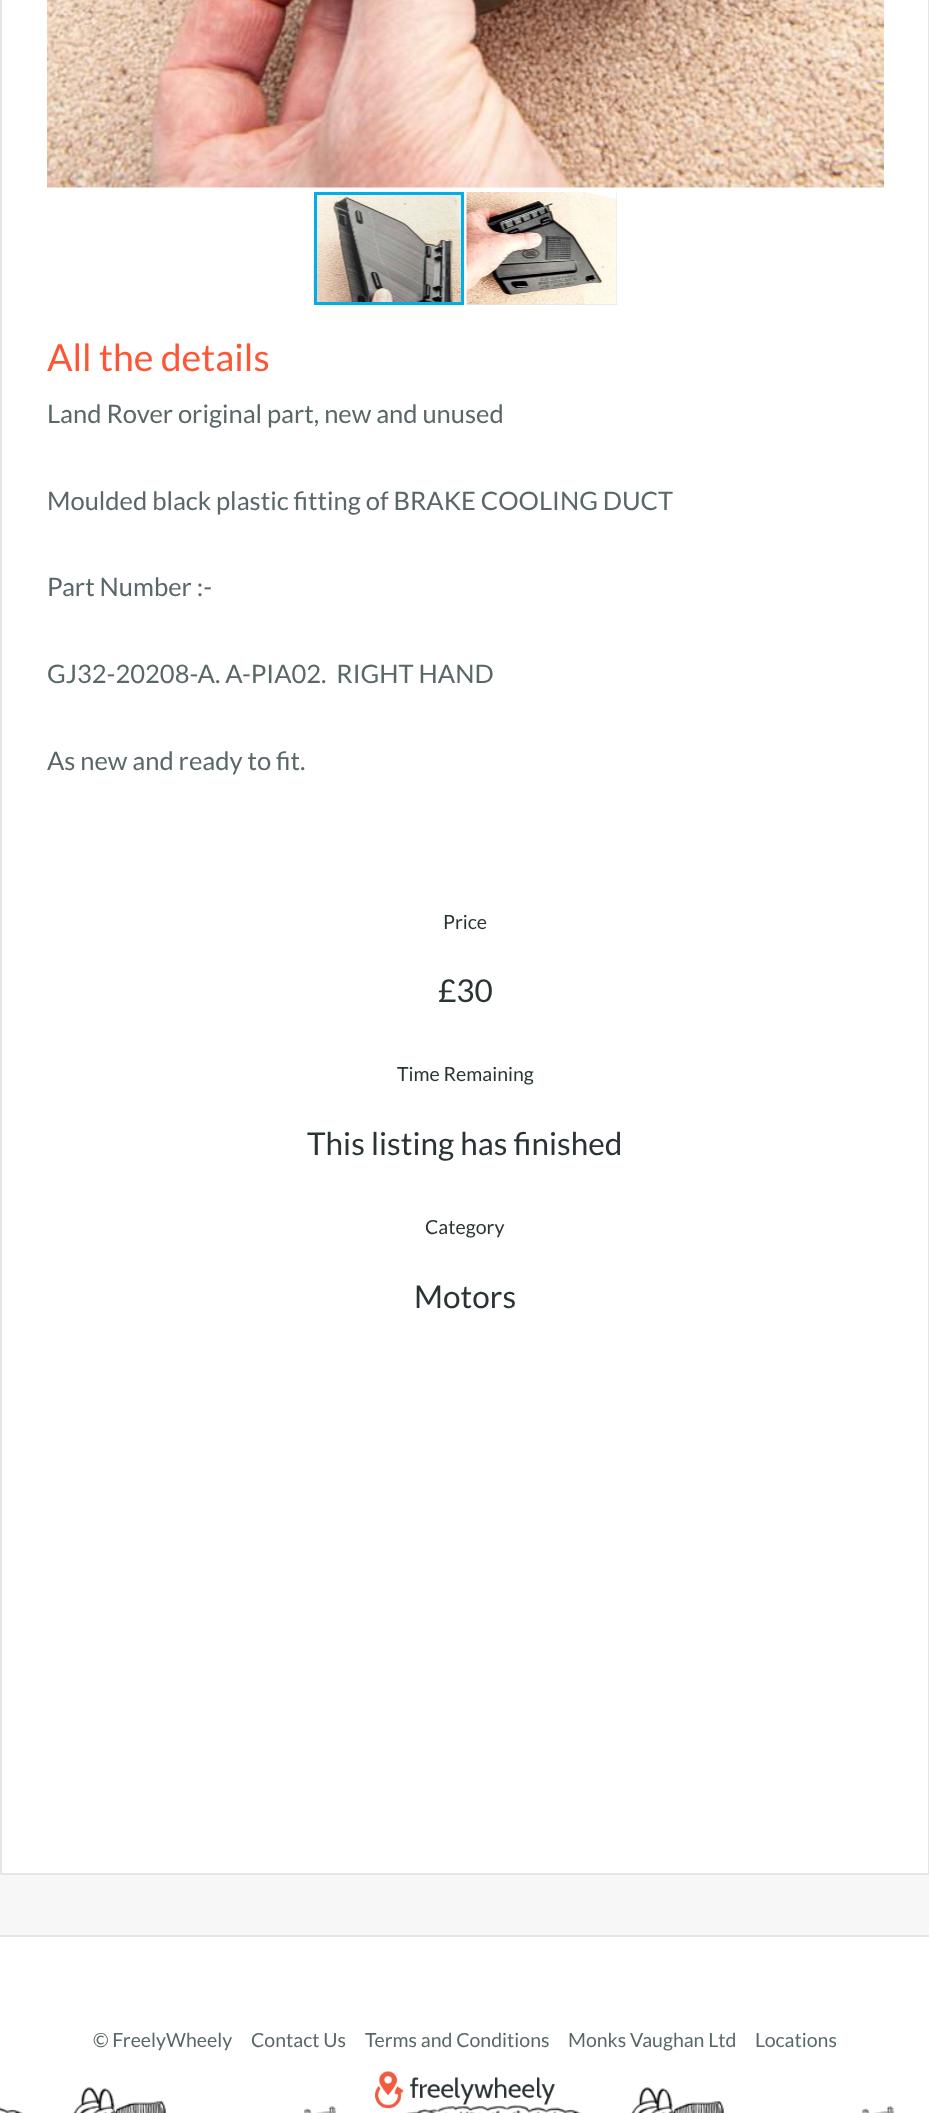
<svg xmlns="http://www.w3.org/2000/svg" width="929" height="2113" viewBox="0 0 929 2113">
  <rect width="100%" height="100%" fill="#fff"/>
  <path d="M0 1875h929v60H0z" fill="#f7f7f7"/>
  <path d="M0 1935h929v2H0z" fill="#e6e6e6"/>
  <path d="M1 -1h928v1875H1z" fill="none" stroke="#e6e6e6" stroke-width="2"/>
  <image x="47" y="0" width="837" height="188" href="img/1.png"/>
  <image x="313" y="192" width="148" height="113" href="img/2.png"/>
  <path d="M315.5 193.5h147v110H315.5z" fill="none" stroke="#00afea" stroke-width="3"/>
  <path d="M467 192h150v113H467z" fill="#e5e5e5"/>
  <image x="466" y="192" width="151" height="113" href="img/3.png"/>
  <image x="0" y="2087" width="895" height="26" href="img/4.png"/>
  <image x="375" y="2071" width="180" height="38" href="img/5.png"/>
  <text x="47" y="371" font-family="Lato" font-size="37.5" fill="#fe5635">All the details</text>
  <g font-family="Lato" font-size="25.5" fill="#5a6768">
    <text x="47" y="423">Land Rover original part, new and unused</text>
    <text x="47" y="510">Moulded black plastic fitting of BRAKE COOLING DUCT</text>
    <text x="47" y="596">Part Number :-</text>
    <text x="47" y="683" xml:space="preserve">GJ32-20208-A. A-PIA02.  RIGHT HAND</text>
    <text x="47" y="770">As new and ready to fit.</text>
  </g>
  <text x="443" y="929" font-family="Lato" font-size="19.5" fill="#2b3435">Price</text>
  <text x="438" y="1002" font-family="Lato" font-size="31.5" fill="#2b3435">£30</text>
  <text x="397" y="1081" font-family="Lato" font-size="19.5" fill="#2b3435">Time Remaining</text>
  <text x="307" y="1155" font-family="Lato" font-size="31.5" fill="#2b3435">This listing has finished</text>
  <text x="425" y="1234" font-family="Lato" font-size="19.5" fill="#2b3435">Category</text>
  <text x="414" y="1308" font-family="Lato" font-size="31.5" fill="#2b3435">Motors</text>
  <g font-family="Lato" font-size="19.5" fill="#5a6768">
    <text x="93" y="2047">© FreelyWheely</text>
    <text x="251" y="2047">Contact Us</text>
    <text x="365" y="2047">Terms and Conditions</text>
    <text x="568" y="2047">Monks Vaughan Ltd</text>
    <text x="755" y="2047">Locations</text>
  </g>
</svg>
